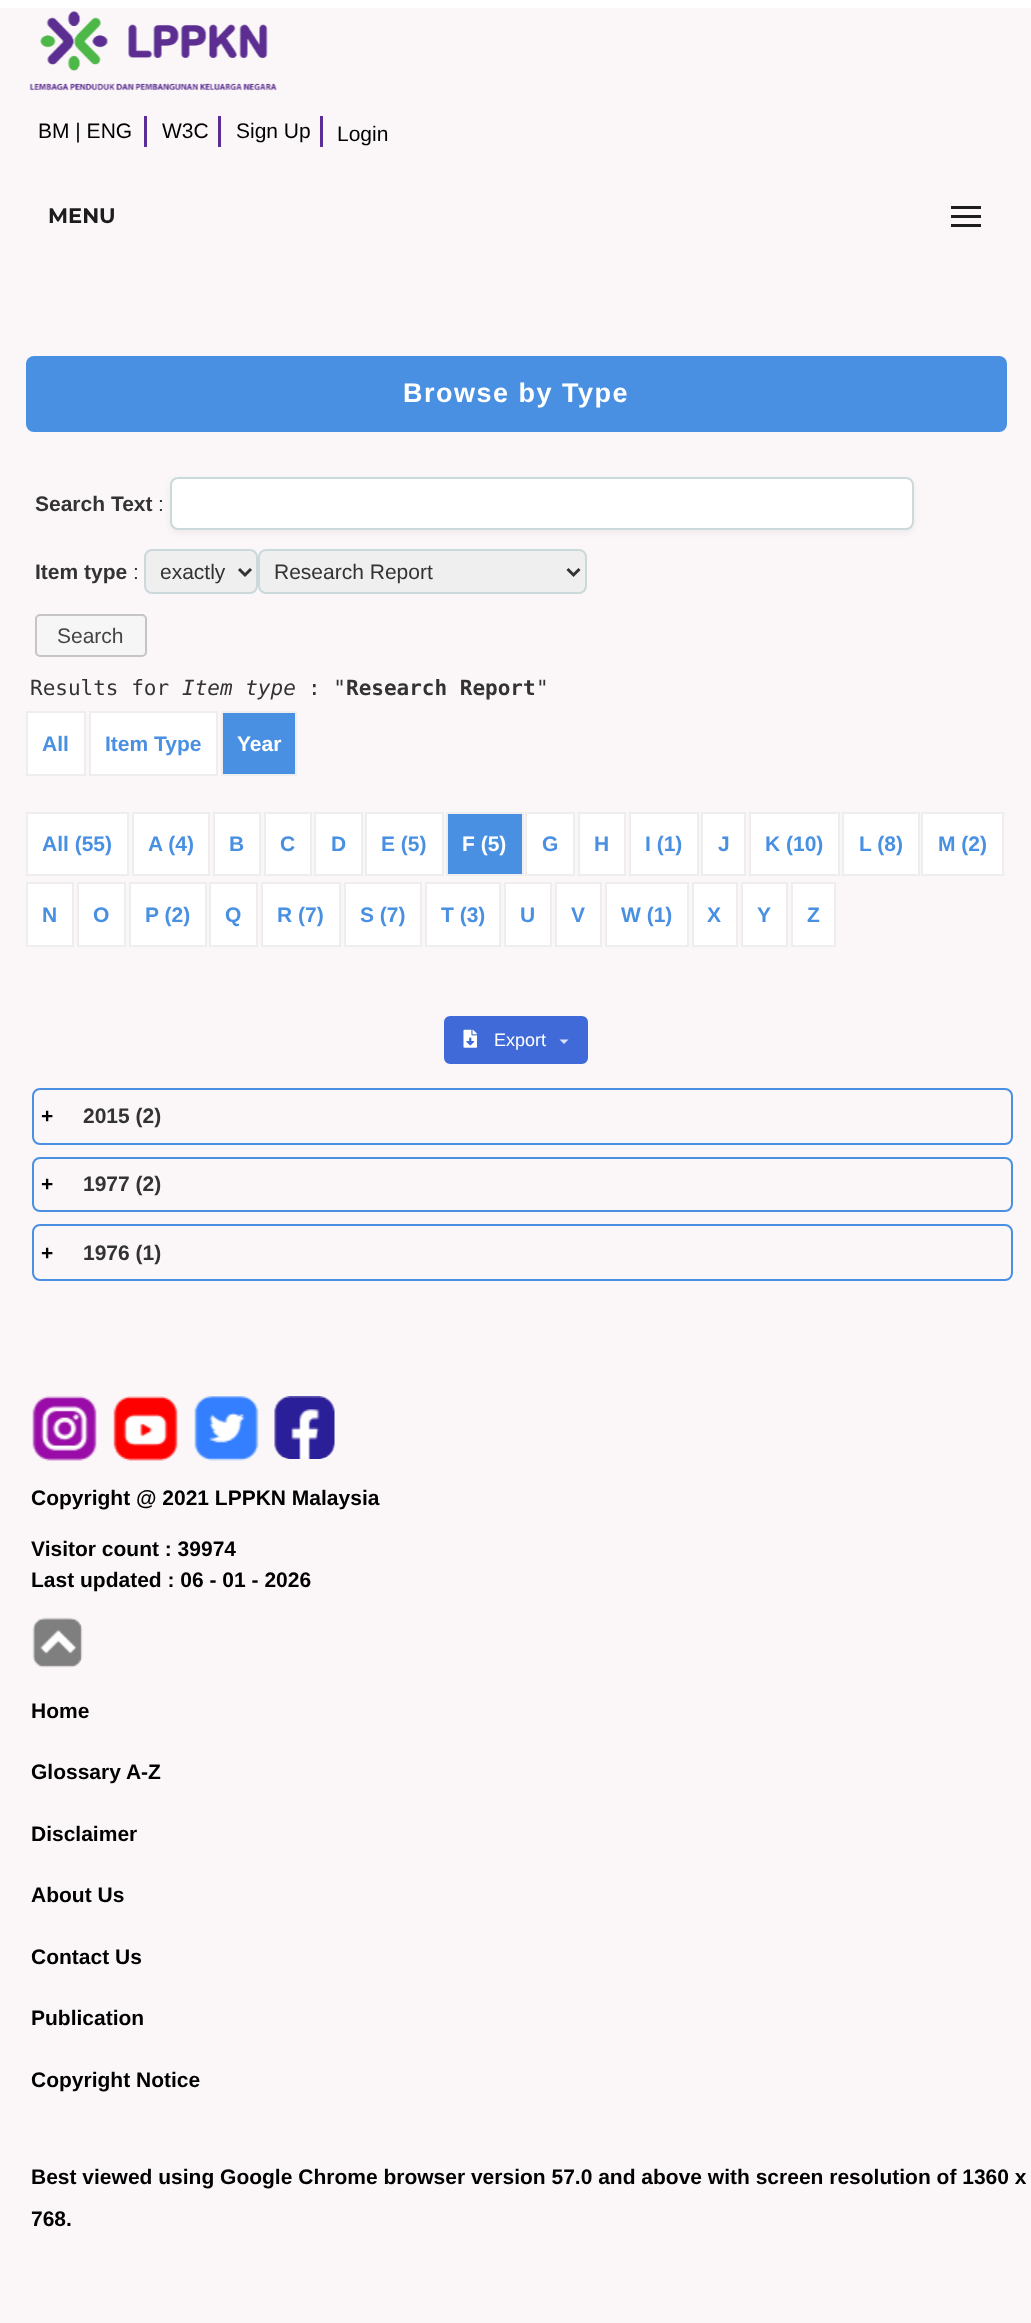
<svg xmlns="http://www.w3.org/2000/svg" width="1031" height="2323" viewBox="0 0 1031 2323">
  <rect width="100%" height="100%" fill="#fff"/>
  <path d="M0 8h1031v2315H0z" fill="#fbf7f8"/>
  <image x="29" y="11" width="248" height="80" href="img/1.png"/>
  <path d="M144 116h3v31H144z" fill="#5c2d96"/>
  <path d="M218 116h3v31H218z" fill="#5c2d96"/>
  <path d="M320 116h3v31H320z" fill="#5c2d96"/>
  <path d="M951 206h30v3H951z" fill="#1d1d1d"/>
  <path d="M951 215h30v3H951z" fill="#1d1d1d"/>
  <path d="M951 224h30v3H951z" fill="#1d1d1d"/>
  <rect x="26" y="356" width="981" height="76" rx="8" fill="#4990e2"/>
  <rect x="170" y="480" width="744" height="53" rx="8" fill="#0000000d" filter="blur(3px)"/>
  <rect x="171" y="478" width="742" height="51" rx="7" fill="#fff" stroke="#cbd9db" stroke-width="2"/>
  <rect x="145" y="550" width="112" height="43" rx="7" fill="#efefef" stroke="#cbd9db" stroke-width="2"/>
  <path d="M239 569L245 575L251 569" fill="none" stroke="#333" stroke-width="3"/>
  <rect x="259" y="550" width="327" height="43" rx="7" fill="#efefef" stroke="#cbd9db" stroke-width="2"/>
  <path d="M567.5 569L573.5 575L579.5 569" fill="none" stroke="#333" stroke-width="3"/>
  <rect x="36" y="615" width="110" height="41" rx="4" fill="#f6f6f6" stroke="#c5c5c5" stroke-width="2"/>
  <path d="M27 712h58v63H27z" fill="#fff" stroke="#eee" stroke-width="2"/>
  <path d="M90 712h127v63H90z" fill="#fff" stroke="#eee" stroke-width="2"/>
  <path d="M222 712h74v63H222z" fill="#4990e2" stroke="#eee" stroke-width="2"/>
  <path d="M27 813h101v62H27z" fill="#fff" stroke="#eee" stroke-width="2"/>
  <path d="M133 813h76v62H133z" fill="#fff" stroke="#eee" stroke-width="2"/>
  <path d="M214 813h46v62H214z" fill="#fff" stroke="#eee" stroke-width="2"/>
  <path d="M265 813h46v62H265z" fill="#fff" stroke="#eee" stroke-width="2"/>
  <path d="M315 813h47v62H315z" fill="#fff" stroke="#eee" stroke-width="2"/>
  <path d="M366 813h77v62H366z" fill="#fff" stroke="#eee" stroke-width="2"/>
  <path d="M447 813h76v62H447z" fill="#4990e2" stroke="#eee" stroke-width="2"/>
  <path d="M526 813h48v62H526z" fill="#fff" stroke="#eee" stroke-width="2"/>
  <path d="M579 813h46v62H579z" fill="#fff" stroke="#eee" stroke-width="2"/>
  <path d="M630 813h68v62H630z" fill="#fff" stroke="#eee" stroke-width="2"/>
  <path d="M702 813h43v62H702z" fill="#fff" stroke="#eee" stroke-width="2"/>
  <path d="M750 813h89v62H750z" fill="#fff" stroke="#eee" stroke-width="2"/>
  <path d="M843 813h76v62H843z" fill="#fff" stroke="#eee" stroke-width="2"/>
  <path d="M922 813h81v62H922z" fill="#fff" stroke="#eee" stroke-width="2"/>
  <path d="M27 883h46v63H27z" fill="#fff" stroke="#eee" stroke-width="2"/>
  <path d="M78 883h47v63H78z" fill="#fff" stroke="#eee" stroke-width="2"/>
  <path d="M130 883h76v63H130z" fill="#fff" stroke="#eee" stroke-width="2"/>
  <path d="M210 883h47v63H210z" fill="#fff" stroke="#eee" stroke-width="2"/>
  <path d="M262 883h78v63H262z" fill="#fff" stroke="#eee" stroke-width="2"/>
  <path d="M345 883h76v63H345z" fill="#fff" stroke="#eee" stroke-width="2"/>
  <path d="M426 883h74v63H426z" fill="#fff" stroke="#eee" stroke-width="2"/>
  <path d="M505 883h46v63H505z" fill="#fff" stroke="#eee" stroke-width="2"/>
  <path d="M556 883h45v63H556z" fill="#fff" stroke="#eee" stroke-width="2"/>
  <path d="M606 883h82v63H606z" fill="#fff" stroke="#eee" stroke-width="2"/>
  <path d="M693 883h44v63H693z" fill="#fff" stroke="#eee" stroke-width="2"/>
  <path d="M742 883h45v63H742z" fill="#fff" stroke="#eee" stroke-width="2"/>
  <path d="M792 883h43v63H792z" fill="#fff" stroke="#eee" stroke-width="2"/>
  <rect x="445" y="1017" width="142" height="46" rx="5" fill="#3f6ad8" stroke="#3f6ad8" stroke-width="2"/>
  <image x="463" y="1029" width="14" height="19" href="img/2.png"/>
  <path d="M559.5 1039.5H568.5L564 1044Z" fill="#d9e1f7"/>
  <rect x="33" y="1089" width="979" height="55" rx="7" fill="none" stroke="#4990e2" stroke-width="2"/>
  <rect x="33" y="1158" width="979" height="53" rx="7" fill="none" stroke="#4990e2" stroke-width="2"/>
  <rect x="33" y="1225" width="979" height="55" rx="7" fill="none" stroke="#4990e2" stroke-width="2"/>
  <image x="32" y="1396" width="65" height="65" href="img/3.png"/>
  <image x="113" y="1396" width="65" height="65" href="img/4.png"/>
  <image x="194" y="1396" width="65" height="65" href="img/5.png"/>
  <image x="274" y="1396" width="61" height="63" href="img/6.png"/>
  <image x="32" y="1617" width="51" height="51" href="img/7.png"/>
  <g font-family="Liberation Sans" font-size="21" fill="#000">
    <text x="38" y="138">BM | ENG</text>
    <text x="162" y="138">W3C</text>
    <text x="236" y="138">Sign Up</text>
    <text x="337" y="141">Login</text>
  </g>
  <text x="48" y="223" font-family="Montserrat" font-size="21" font-weight="bold" fill="#1d1d1d">MENU</text>
  <text x="403" y="402" font-family="Liberation Sans" font-size="27" font-weight="bold" letter-spacing="1.5" fill="#fff">Browse by Type</text>
  <text x="35" y="511" font-family="Liberation Sans" font-size="21" font-weight="bold" fill="#333">Search Text</text>
  <text x="158" y="511" font-family="Liberation Sans" font-size="21" fill="#333">:</text>
  <text x="35" y="579" font-family="Liberation Sans" font-size="21" font-weight="bold" fill="#333">Item type</text>
  <g font-family="Liberation Sans" font-size="21" fill="#333">
    <text x="133" y="579">:</text>
    <text x="160" y="579">exactly</text>
    <text x="274" y="579">Research Report</text>
  </g>
  <text x="57" y="643" font-family="Liberation Sans" font-size="21" fill="#454545">Search</text>
  <text x="30" y="695" font-family="DejaVu Sans Mono" font-size="21" fill="#333">Results for</text>
  <text x="182" y="695" font-family="DejaVu Sans Mono" font-size="21" font-style="italic" fill="#333">Item type</text>
  <text x="308" y="695" font-family="DejaVu Sans Mono" font-size="21" fill="#333">: "</text>
  <text x="346" y="695" font-family="DejaVu Sans Mono" font-size="21" font-weight="bold" fill="#333">Research Report</text>
  <text x="536" y="695" font-family="DejaVu Sans Mono" font-size="21" fill="#333">"</text>
  <g font-family="Liberation Sans" font-size="21" font-weight="bold" fill="#4990e2">
    <text x="42" y="751">All</text>
    <text x="105" y="751">Item Type</text>
  </g>
  <text x="237" y="751" font-family="Liberation Sans" font-size="21" font-weight="bold" fill="#fff">Year</text>
  <g font-family="Liberation Sans" font-size="21" font-weight="bold" fill="#4990e2">
    <text x="42" y="851">All (55)</text>
    <text x="148" y="851">A (4)</text>
    <text x="229" y="851">B</text>
    <text x="280" y="851">C</text>
    <text x="331" y="851">D</text>
    <text x="381" y="851">E (5)</text>
  </g>
  <text x="462" y="851" font-family="Liberation Sans" font-size="21" font-weight="bold" fill="#fff">F (5)</text>
  <g font-family="Liberation Sans" font-size="21" font-weight="bold" fill="#4990e2">
    <text x="542" y="851">G</text>
    <text x="594" y="851">H</text>
    <text x="645" y="851">I (1)</text>
    <text x="718" y="851">J</text>
    <text x="765" y="851">K (10)</text>
    <text x="859" y="851">L (8)</text>
    <text x="938" y="851">M (2)</text>
    <text x="42" y="922">N</text>
    <text x="93" y="922">O</text>
    <text x="145" y="922">P (2)</text>
    <text x="225" y="922">Q</text>
    <text x="277" y="922">R (7)</text>
    <text x="360" y="922">S (7)</text>
    <text x="441" y="922">T (3)</text>
    <text x="520" y="922">U</text>
    <text x="571" y="922">V</text>
    <text x="621" y="922">W (1)</text>
    <text x="707" y="922">X</text>
    <text x="757" y="922">Y</text>
    <text x="807" y="922">Z</text>
  </g>
  <text x="494" y="1046" font-family="Liberation Sans" font-size="18" fill="#fff">Export</text>
  <text x="41" y="1123" font-family="Liberation Sans" font-size="21" font-weight="bold" fill="#000">+</text>
  <text x="83" y="1123" font-family="Liberation Sans" font-size="21" font-weight="bold" fill="#333">2015 (2)</text>
  <text x="41" y="1191" font-family="Liberation Sans" font-size="21" font-weight="bold" fill="#000">+</text>
  <text x="83" y="1191" font-family="Liberation Sans" font-size="21" font-weight="bold" fill="#333">1977 (2)</text>
  <text x="41" y="1260" font-family="Liberation Sans" font-size="21" font-weight="bold" fill="#000">+</text>
  <text x="83" y="1260" font-family="Liberation Sans" font-size="21" font-weight="bold" fill="#333">1976 (1)</text>
  <g font-family="Liberation Sans" font-size="21" font-weight="bold" fill="#000">
    <text x="31" y="1505">Copyright @ 2021 LPPKN Malaysia</text>
    <text x="31" y="1556">Visitor count : 39974</text>
    <text x="31" y="1587">Last updated : 06 - 01 - 2026</text>
    <text x="31" y="1718">Home</text>
    <text x="31" y="1779">Glossary A-Z</text>
    <text x="31" y="1841">Disclaimer</text>
    <text x="31" y="1902">About Us</text>
    <text x="31" y="1964">Contact Us</text>
    <text x="31" y="2025">Publication</text>
    <text x="31" y="2087">Copyright Notice</text>
    <text x="31" y="2184">Best viewed using Google Chrome browser version 57.0 and above with screen resolution of 1360 x</text>
    <text x="31" y="2226">768.</text>
  </g>
</svg>
